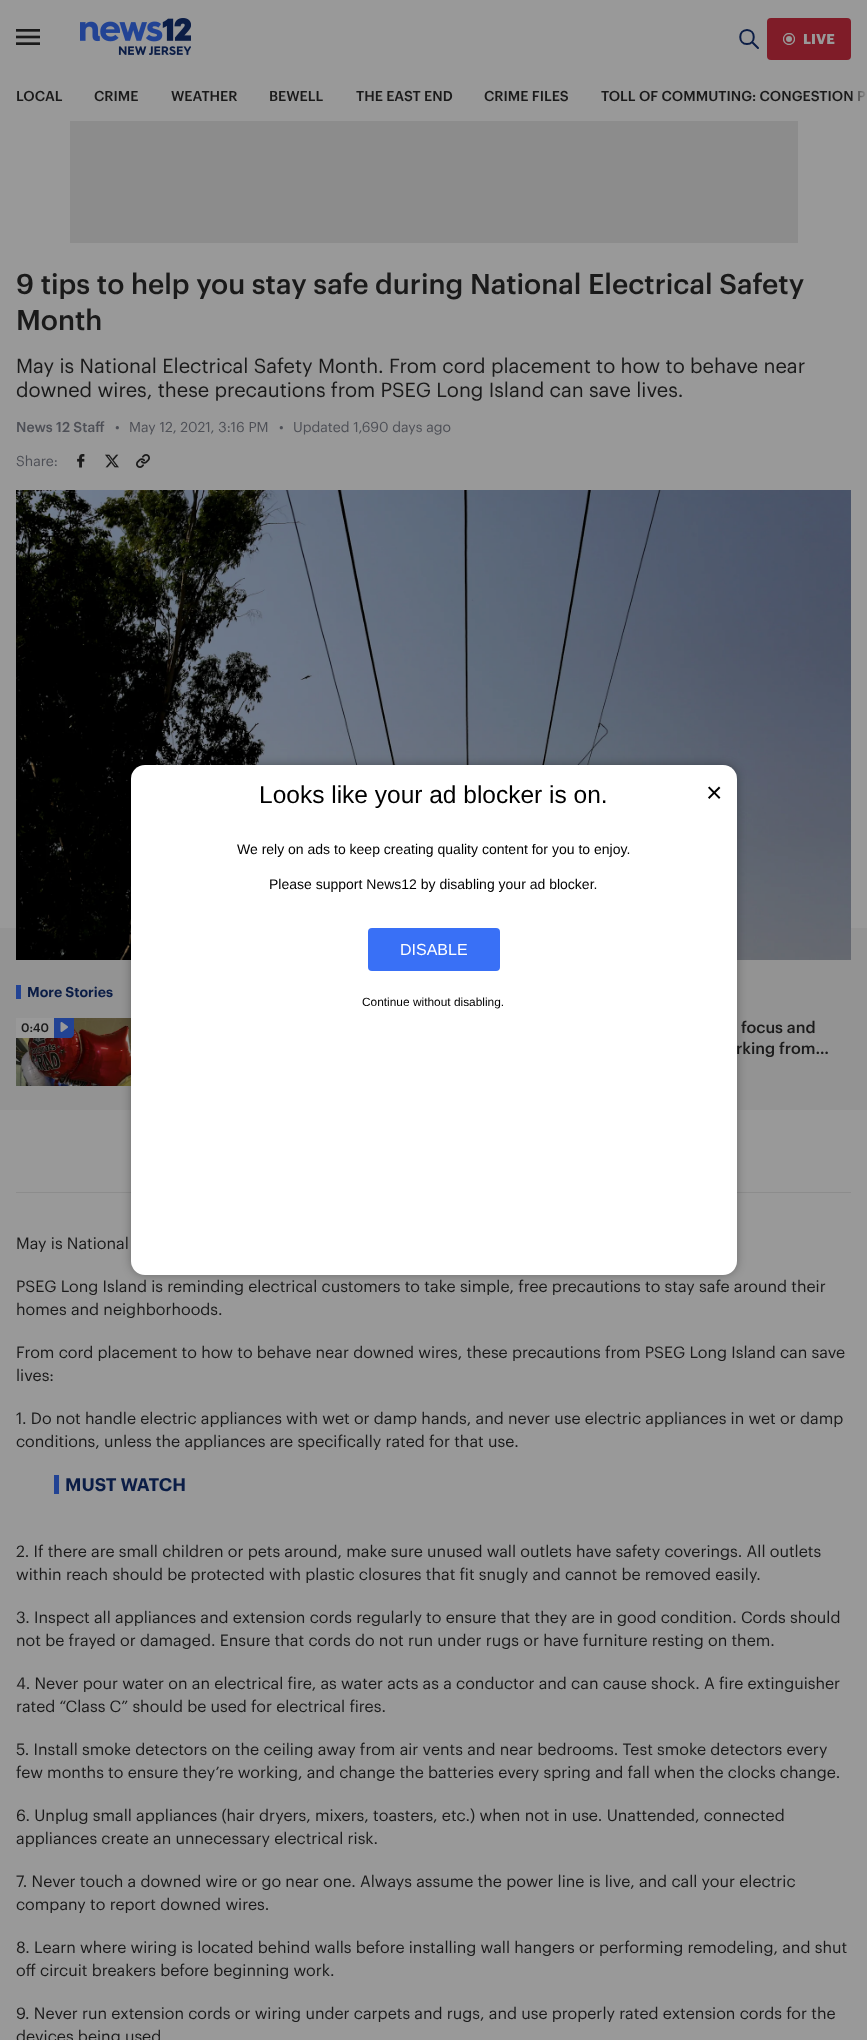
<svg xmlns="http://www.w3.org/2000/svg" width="867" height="2040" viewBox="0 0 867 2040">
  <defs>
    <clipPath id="clip1"><path d="M783 33h12v12H783z"/></clipPath>
    <linearGradient id="g1" gradientUnits="userSpaceOnUse" x1="867" y1="97" x2="851" y2="97"><stop offset="0" stop-color="#999"/><stop offset="1" stop-color="#999" stop-opacity="0"/></linearGradient>
  </defs>
  <rect width="100%" height="100%" fill="#999"/>
  <image x="16" y="29" width="24" height="16" href="img/1.png"/>
  <image x="80" y="18" width="111" height="37" href="img/2.png"/>
  <path d="M752 42L758 48M747 44C738 44 738 30 747 30C756 30 756 44 747 44Z" fill="none" stroke="#0b1d46" stroke-width="2" stroke-linecap="round" stroke-linejoin="round"/>
  <rect x="767" y="18" width="84" height="42" rx="4" fill="#7f1c28"/>
  <circle cx="789" cy="39" r="3" fill="#999"/>
  <g clip-path="url(#clip1)">
    <circle cx="789" cy="39" r="5.5" fill="none" stroke="#999" stroke-width="1.3"/>
  </g>
  <path d="M70 121h728v122H70z" fill="#8c8c8c"/>
  <image x="77" y="454" width="8" height="14" href="img/3.png"/>
  <image x="105" y="454" width="14" height="14" href="img/4.png"/>
  <image x="136" y="454" width="14" height="14" href="img/5.png"/>
  <path d="M0 928h867v182H0z" fill="#939393"/>
  <image x="16" y="490" width="835" height="470" href="img/6.png"/>
  <path d="M16 985h5v14H16z" fill="#224394"/>
  <image x="16" y="1018" width="115" height="68" href="img/7.png"/>
  <path d="M16 1018h38v20H16z" fill="#999"/>
  <path d="M54 1018H74V1034C74 1036 72 1038 70 1038H54Z" fill="#224394"/>
  <image x="60" y="1022" width="8" height="10" href="img/8.png"/>
  <path d="M16 1192h835v1H16z" fill="#8c8c8c"/>
  <path d="M54 1475h5v19H54z" fill="#224394"/>
  <rect x="131" y="765" width="606" height="510" rx="14" fill="#0000004d" filter="blur(5px)"/>
  <text x="803" y="44" font-family="Graphik" font-size="14" font-weight="bold" fill="#999">LIVE</text>
  <g font-family="Graphik" font-size="14" font-weight="500" fill="#1a1a1a">
    <text x="16" y="101">LOCAL</text>
    <text x="94" y="101">CRIME</text>
    <text x="171" y="101">WEATHER</text>
    <text x="269" y="101">BEWELL</text>
    <text x="356" y="101">THE EAST END</text>
    <text x="484" y="101">CRIME FILES</text>
    <text x="601" y="101">TOLL OF COMMUTING: CONGESTION P</text>
  </g>
  <path d="M851 91h14v10H851z" fill="url(#g1)"/>
  <g font-family="Graphik" font-size="28" font-weight="500" fill="#1a1a1a">
    <text x="16" y="294">9 tips to help you stay safe during National Electrical Safety</text>
    <text x="16" y="330">Month</text>
  </g>
  <g font-family="Graphik" font-size="20" fill="#1a1a1a">
    <text x="16" y="373">May is National Electrical Safety Month. From cord placement to how to behave near</text>
    <text x="16" y="397">downed wires, these precautions from PSEG Long Island can save lives.</text>
  </g>
  <text x="16" y="432" font-family="Graphik" font-size="14" font-weight="500" fill="#4d4f56">News 12 Staff</text>
  <g font-family="Graphik" font-size="14" fill="#4d4f56">
    <text x="115" y="432">•</text>
    <text x="129" y="432">May 12, 2021, 3:16 PM</text>
    <text x="279" y="432">•</text>
    <text x="293" y="432">Updated 1,690 days ago</text>
    <text x="16" y="466">Share:</text>
  </g>
  <text x="27" y="997" font-family="Graphik" font-size="14" font-weight="600" fill="#0b1d46">More Stories</text>
  <text x="21" y="1032" font-family="Graphik" font-size="12" font-weight="500" fill="#1a1a1a">0:40</text>
  <g font-family="Graphik" font-size="16" font-weight="500" fill="#1a1a1a">
    <text x="741" y="1033">focus and</text>
    <text x="736" y="1054">rking from…</text>
  </g>
  <g font-family="Graphik" font-size="16" fill="#1a1a1a">
    <text x="16" y="1249">May is National</text>
    <text x="16" y="1292">PSEG Long Island is reminding electrical customers to take simple, free precautions to stay safe around their</text>
    <text x="16" y="1315">homes and neighborhoods.</text>
    <text x="16" y="1358">From cord placement to how to behave near downed wires, these precautions from PSEG Long Island can save</text>
    <text x="16" y="1381">lives:</text>
    <text x="16" y="1424">1. Do not handle electric appliances with wet or damp hands, and never use electric appliances in wet or damp</text>
    <text x="16" y="1447">conditions, unless the appliances are specifically rated for that use.</text>
  </g>
  <text x="65" y="1491" font-family="Graphik" font-size="18" font-weight="600" fill="#0b1d46">MUST WATCH</text>
  <g font-family="Graphik" font-size="16" fill="#1a1a1a">
    <text x="16" y="1557">2. If there are small children or pets around, make sure unused wall outlets have safety coverings. All outlets</text>
    <text x="16" y="1580">within reach should be protected with plastic closures that fit snugly and cannot be removed easily.</text>
    <text x="16" y="1623">3. Inspect all appliances and extension cords regularly to ensure that they are in good condition. Cords should</text>
    <text x="16" y="1646">not be frayed or damaged. Ensure that cords do not run under rugs or have furniture resting on them.</text>
    <text x="16" y="1689">4. Never pour water on an electrical fire, as water acts as a conductor and can cause shock. A fire extinguisher</text>
    <text x="16" y="1712">rated “Class C” should be used for electrical fires.</text>
    <text x="16" y="1755">5. Install smoke detectors on the ceiling away from air vents and near bedrooms. Test smoke detectors every</text>
    <text x="16" y="1778">few months to ensure they’re working, and change the batteries every spring and fall when the clocks change.</text>
    <text x="16" y="1821">6. Unplug small appliances (hair dryers, mixers, toasters, etc.) when not in use. Unattended, connected</text>
    <text x="16" y="1844">appliances create an unnecessary electrical risk.</text>
    <text x="16" y="1887">7. Never touch a downed wire or go near one. Always assume the power line is live, and call your electric</text>
    <text x="16" y="1910">company to report downed wires.</text>
    <text x="16" y="1953">8. Learn where wiring is located behind walls before installing wall hangers or performing remodeling, and shut</text>
    <text x="16" y="1976">off circuit breakers before beginning work.</text>
    <text x="16" y="2019">9. Never run extension cords or wiring under carpets and rugs, and use properly rated extension cords for the</text>
    <text x="16" y="2042">devices being used</text>
  </g>
  <rect x="131" y="765" width="606" height="510" rx="14" fill="#fff"/>
  <text x="259" y="803" font-family="Liberation Sans" font-size="24.5" fill="#000">Looks like your ad blocker is on.</text>
  <text x="706" y="802" font-family="Liberation Sans" font-size="28" fill="#000">×</text>
  <g font-family="Liberation Sans" font-size="14" fill="#000">
    <text x="237" y="854">We rely on ads to keep creating quality content for you to enjoy.</text>
    <text x="269" y="889">Please support News12 by disabling your ad blocker.</text>
  </g>
  <rect x="368" y="928" width="132" height="43" rx="4" fill="#3970f6"/>
  <text x="400" y="955" font-family="Liberation Sans" font-size="16" fill="#fff">DISABLE</text>
  <text x="362" y="1006" font-family="Liberation Sans" font-size="11.9" fill="#000">Continue without disabling.</text>
</svg>
